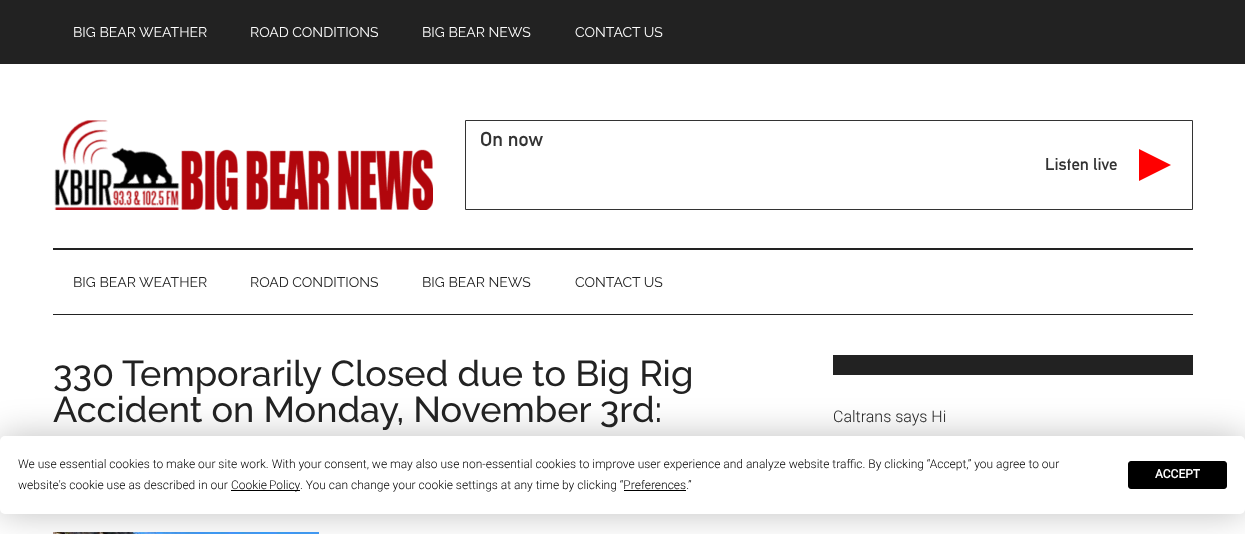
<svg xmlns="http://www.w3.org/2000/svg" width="1245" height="534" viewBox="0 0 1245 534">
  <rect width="100%" height="100%" fill="#fff"/>
  <path d="M0 0h1245v64H0z" fill="#222"/>
  <path d="M53 248h1140v2H53z" fill="#222"/>
  <image x="54" y="120" width="379" height="90" href="img/1.png"/>
  <path d="M465.5 120.5h727v89H465.5z" fill="none" stroke="#333"/>
  <path d="M1139 181V149L1171 165Z" fill="#f00"/>
  <path d="M53 314h1140v1H53z" fill="#222"/>
  <image x="53" y="532" width="266" height="2" href="img/2.png"/>
  <path d="M833 355h360v20H833z" fill="#222"/>
  <rect y="436" width="1245" height="78" rx="5" fill="#00000040" filter="blur(17.5px)"/>
  <rect y="436" width="1245" height="78" rx="5" fill="#fff"/>
  <path d="M231 490h69v1H231z" fill="#000"/>
  <path d="M624 490h62v1H624z" fill="#000"/>
  <rect x="1128.5" y="461.5" width="98" height="27" rx="2.5" fill="#000" stroke="#000"/>
  <g font-family="Raleway" font-size="14" fill="#fff">
    <text x="73" y="37">BIG BEAR WEATHER</text>
    <text x="250" y="37">ROAD CONDITIONS</text>
    <text x="422" y="37">BIG BEAR NEWS</text>
    <text x="575" y="37">CONTACT US</text>
  </g>
  <text x="480" y="146" font-family="'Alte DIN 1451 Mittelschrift'" font-size="20" fill="#333">On now</text>
  <text x="1045" y="170" font-family="'Alte DIN 1451 Mittelschrift'" font-size="17" fill="#333">Listen live</text>
  <g font-family="Raleway" font-size="14" fill="#222">
    <text x="73" y="287">BIG BEAR WEATHER</text>
    <text x="250" y="287">ROAD CONDITIONS</text>
    <text x="422" y="287">BIG BEAR NEWS</text>
    <text x="575" y="287">CONTACT US</text>
  </g>
  <g font-family="Raleway" font-size="36" font-weight="500" fill="#222">
    <text x="53" y="386">330 Temporarily Closed due to Big Rig</text>
    <text x="53" y="422">Accident on Monday, November 3rd:</text>
  </g>
  <text x="833" y="422" font-family="Roboto" font-size="16" font-weight="300" fill="#222">Caltrans says Hi</text>
  <g font-family="Roboto" font-size="12" font-weight="300" fill="#000">
    <text x="18" y="468">We use essential cookies to make our site work. With your consent, we may also use non-essential cookies to improve user experience and analyze website traffic. By clicking “Accept,” you agree to our</text>
    <text x="18" y="489">website's cookie use as described in our</text>
    <text x="231" y="489" word-spacing="-1">Cookie Policy</text>
    <text x="300" y="489">. You can change your cookie settings at any time by clicking “Preferences.”</text>
  </g>
  <text x="1155" y="478" font-family="Roboto" font-size="12" font-weight="bold" fill="#fff">ACCEPT</text>
</svg>
